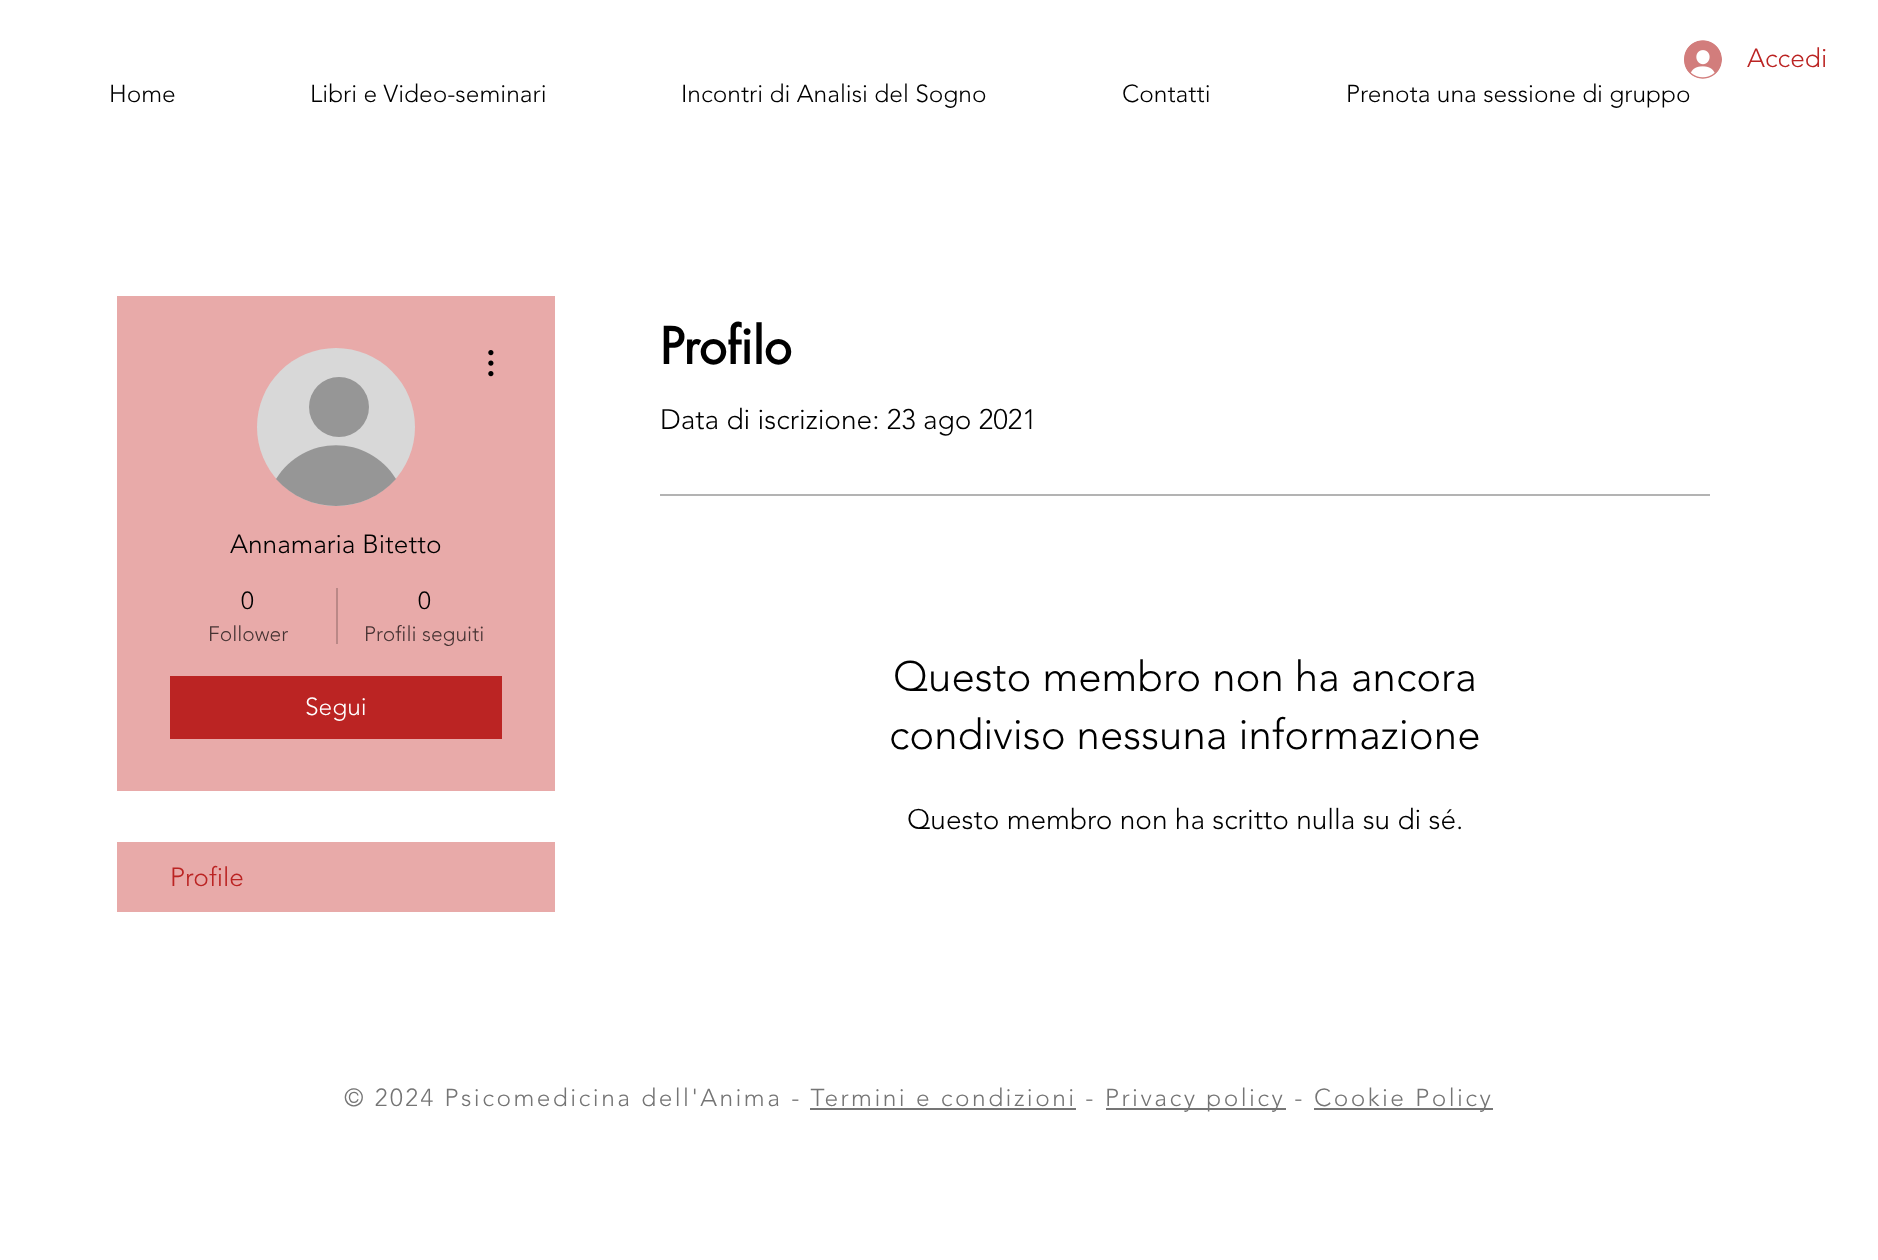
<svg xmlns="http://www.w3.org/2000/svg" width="1878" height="1260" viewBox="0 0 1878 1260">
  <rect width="100%" height="100%" fill="#fff"/>
  <image x="1684" y="40" width="38" height="39" href="img/1.png"/>
  <path d="M117 296h438v495H117z" fill="#e8aaa9"/>
  <circle cx="336" cy="427" r="79" fill="#d8d8d8"/>
  <circle cx="339" cy="407" r="30" fill="#969696"/>
  <path d="M396 479C364 515 308 515 276 479C304 434 368 434 396 479Z" fill="#969696"/>
  <image x="488" y="350" width="6" height="27" href="img/2.png"/>
  <path d="M336 588h2v56H336z" fill="#ba8887"/>
  <path d="M170 676h332v63H170z" fill="#bb2423"/>
  <path d="M117 842h438v70H117z" fill="#e8aaa9"/>
  <path d="M660 494h1050v2H660z" fill="#b3b3b3"/>
  <path d="M810 1108h266v2H810z" fill="#757575"/>
  <path d="M1106 1108h180v2H1106z" fill="#757575"/>
  <path d="M1314 1108h179v2H1314z" fill="#757575"/>
  <text x="1747" y="67" font-family="'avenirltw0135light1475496'" font-size="26.25" font-weight="300" fill="#bb2423">Accedi</text>
  <g font-family="'avenirltw0135light1475496'" font-size="24.5" font-weight="300" fill="#000">
    <text x="109" y="102">Home</text>
    <text x="310" y="102">Libri e Video-seminari</text>
    <text x="681" y="102">Incontri di Analisi del Sogno</text>
    <text x="1122" y="102">Contatti</text>
    <text x="1346" y="102">Prenota una sessione di gruppo</text>
  </g>
  <text x="230" y="553" font-family="'avenirltw0135light1475496'" font-size="26.25" font-weight="300" fill="#000">Annamaria Bitetto</text>
  <text x="241" y="609" font-family="'avenirltw0135light1475496'" font-size="24.5" font-weight="300" fill="#000">0</text>
  <text x="208" y="641" font-family="'avenirltw0135light1475496'" font-size="21" font-weight="300" fill="#463333">Follower</text>
  <text x="418" y="609" font-family="'avenirltw0135light1475496'" font-size="24.5" font-weight="300" fill="#000">0</text>
  <text x="364" y="641" font-family="'avenirltw0135light1475496'" font-size="21" font-weight="300" fill="#463333">Profili seguiti</text>
  <text x="305" y="715" font-family="'avenirltw0135light1475496'" font-size="24.5" font-weight="300" fill="#fff">Segui</text>
  <text x="170" y="886" font-family="'avenirltw0135light1475496'" font-size="26.25" font-weight="300" fill="#bb2423">Profile</text>
  <text x="660" y="364" font-family="futura" font-size="49" font-weight="bold" fill="#000">Profilo</text>
  <text x="660" y="429" font-family="'avenirltw0135light1475496'" font-size="28" font-weight="300" fill="#000">Data di iscrizione: 23 ago 2021</text>
  <g font-family="'avenirltw0135light1475496'" font-size="42" font-weight="300" fill="#000">
    <text x="893" y="691">Questo membro non ha ancora</text>
    <text x="889" y="749">condiviso nessuna informazione</text>
  </g>
  <text x="907" y="829" font-family="'avenirltw0135light1475496'" font-size="28" font-weight="300" fill="#000">Questo membro non ha scritto nulla su di sé.</text>
  <g font-family="'avenirltw0135light1475496'" font-size="24.5" font-weight="300" letter-spacing="2.45" fill="#757575">
    <text x="344" y="1106">© 2024 Psicomedicina dell'Anima - Termini e condizioni -</text>
    <text x="1105" y="1106">Privacy policy -</text>
    <text x="1314" y="1106">Cookie Policy</text>
  </g>
</svg>
